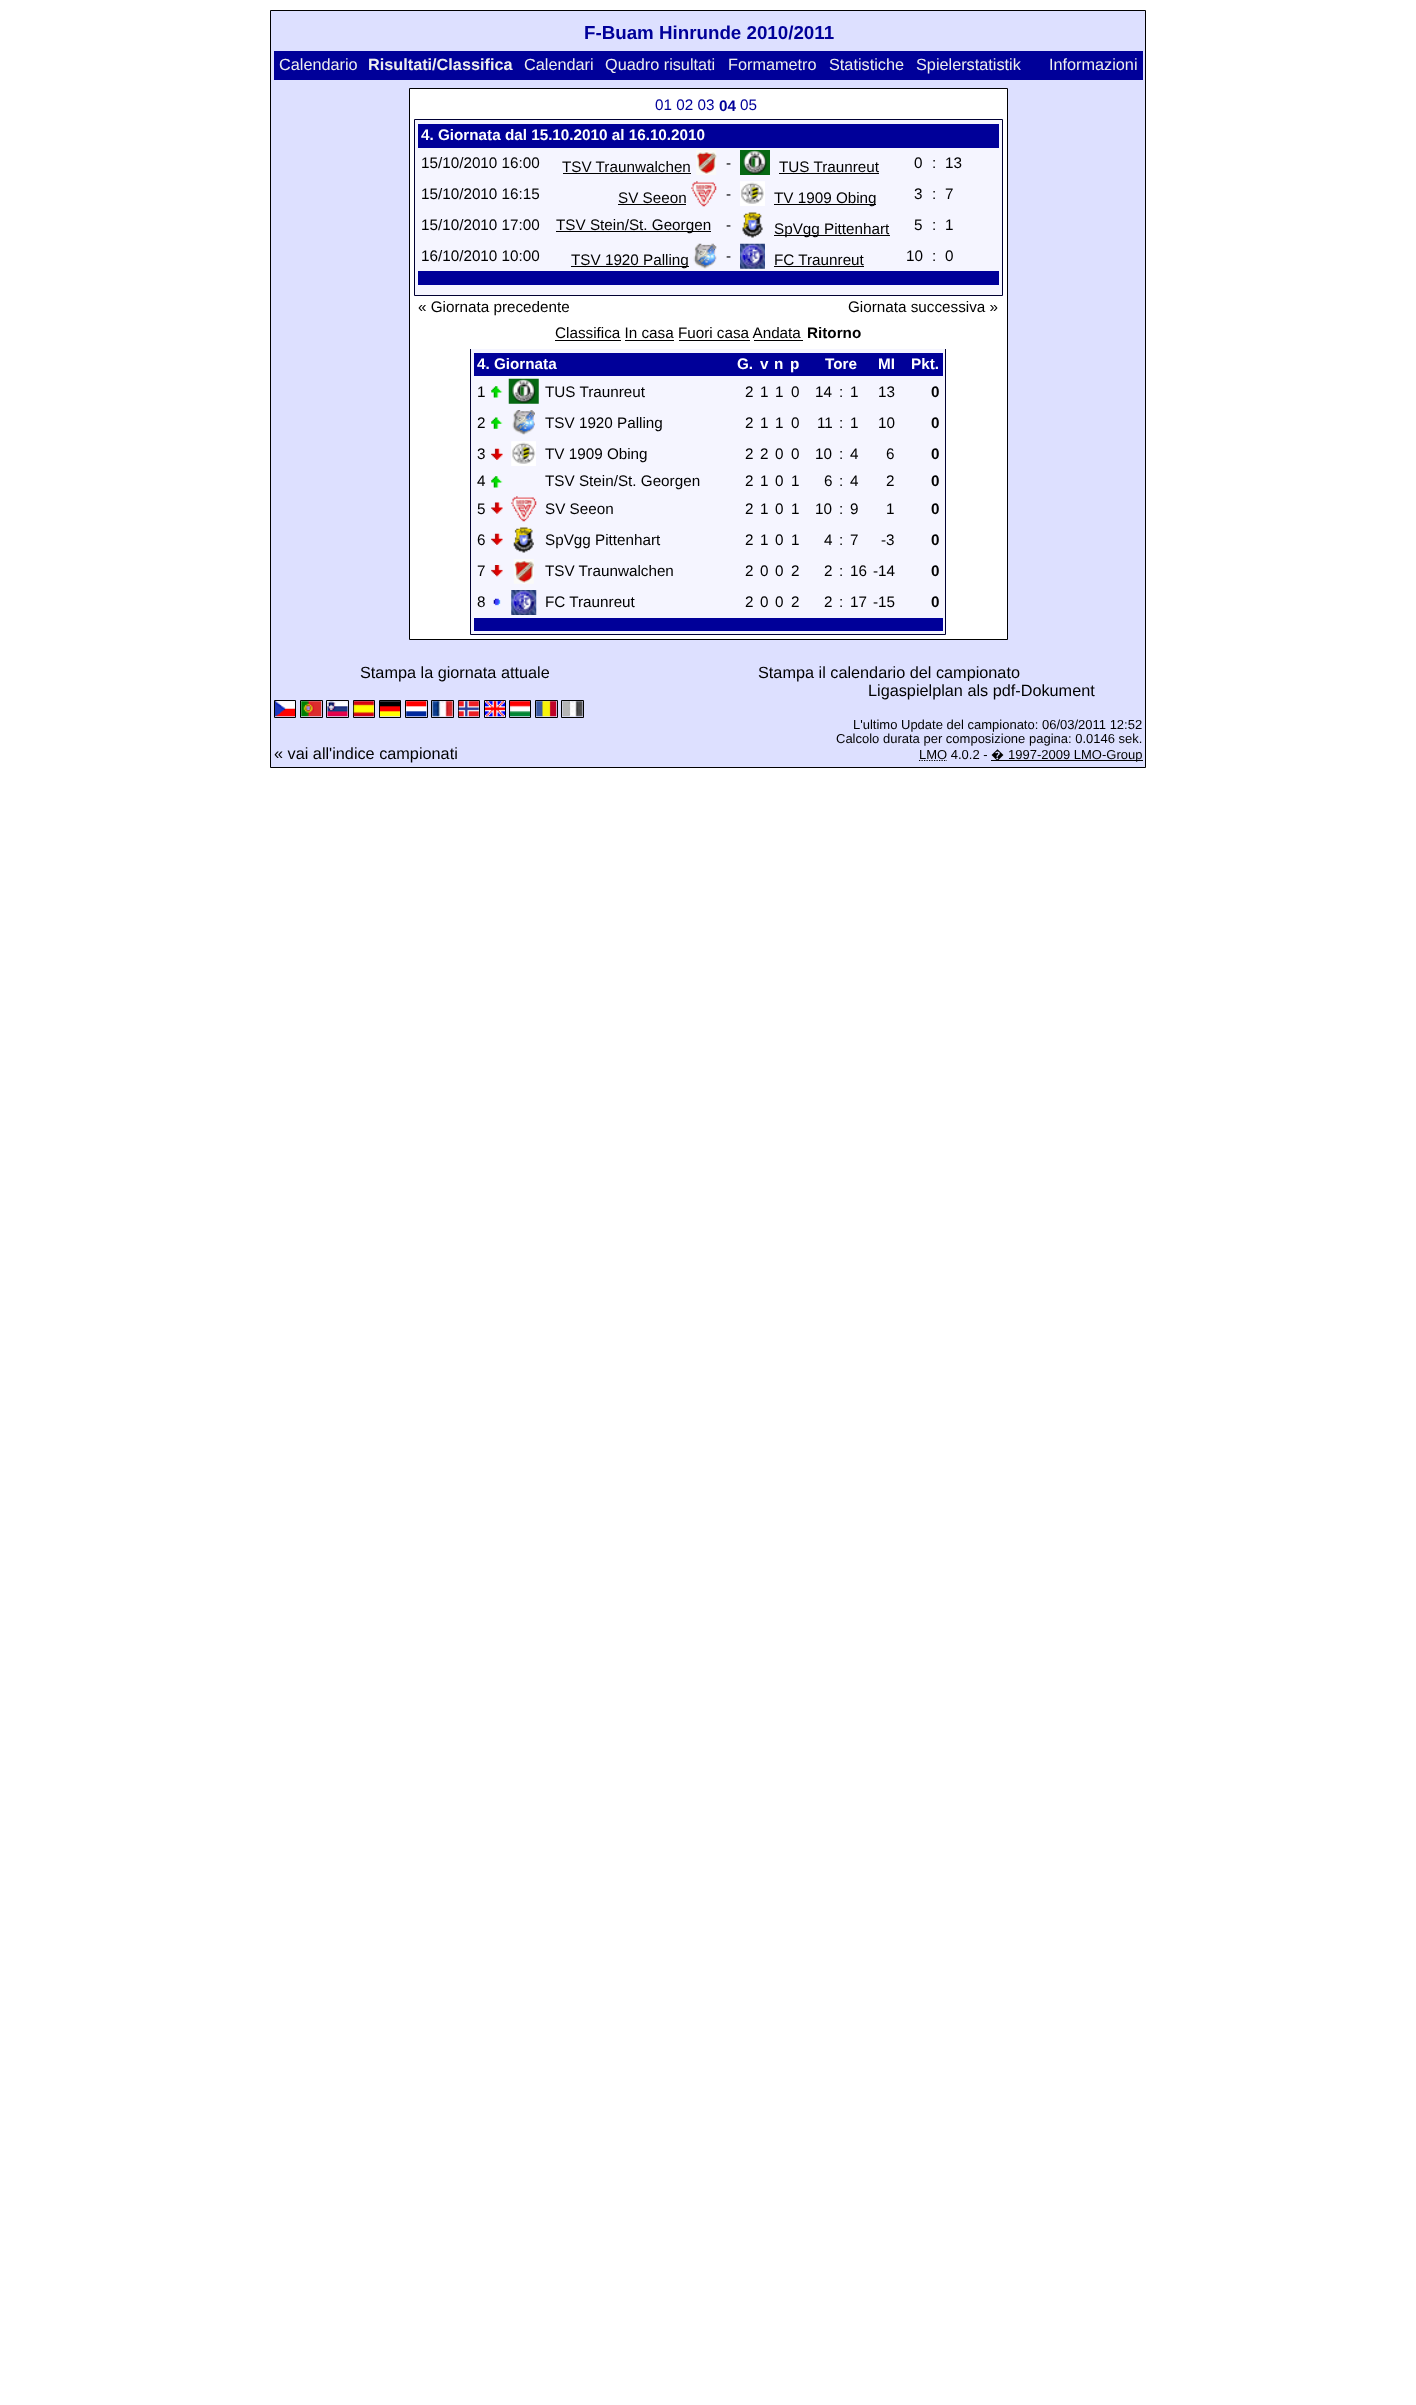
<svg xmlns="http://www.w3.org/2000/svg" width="1416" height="2405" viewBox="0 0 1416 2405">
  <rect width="100%" height="100%" fill="#fff"/>
  <path d="M270.5 10.5h875v757H270.5z" fill="#dde0ff" stroke="#000"/>
  <path d="M274 51h869v29H274z" fill="#009"/>
  <path d="M409.5 88.5h598v551H409.5z" fill="#fff" stroke="#000"/>
  <path d="M414.5 119.5h588v176H414.5z" fill="#f5f5ff" stroke="#003"/>
  <path d="M418 124h581v24H418z" fill="#009"/>
  <path d="M563 173h128v1H563z" fill="#000"/>
  <image x="696" y="150" width="21" height="25" href="img/1.png"/>
  <image x="740" y="150" width="30" height="25" href="img/2.png"/>
  <path d="M779 173h100v1H779z" fill="#000"/>
  <path d="M618 204h68v1H618z" fill="#000"/>
  <image x="691" y="181" width="26" height="26" href="img/3.png"/>
  <image x="740" y="181" width="25" height="25" href="img/4.png"/>
  <path d="M774 204h102v1H774z" fill="#000"/>
  <path d="M556 231h155v1H556z" fill="#000"/>
  <image x="742" y="212" width="21" height="26" href="img/5.png"/>
  <path d="M774 235h116v1H774z" fill="#000"/>
  <path d="M571 266h118v1H571z" fill="#000"/>
  <image x="693" y="243" width="24" height="26" href="img/6.png"/>
  <image x="740" y="243" width="25" height="26" href="img/7.png"/>
  <path d="M774 266h90v1H774z" fill="#000"/>
  <path d="M418 271h581v14H418z" fill="#009"/>
  <path d="M471 349h474v285H471z" fill="#f5f5ff"/>
  <path d="M470.5 319.5h475v315H470.5z" fill="none" stroke="#003"/>
  <path d="M470 319h476v30H470z" fill="#fff"/>
  <path d="M555 340h66v1H555z" fill="#000"/>
  <path d="M625 340h49v1H625z" fill="#000"/>
  <path d="M679 340h71v1H679z" fill="#000"/>
  <path d="M754 340h49v1H754z" fill="#000"/>
  <path d="M474 353h469v23H474z" fill="#009"/>
  <image x="491" y="386" width="12" height="12" href="img/8.png"/>
  <image x="508" y="378" width="31" height="26" href="img/9.png"/>
  <image x="491" y="417" width="12" height="12" href="img/10.png"/>
  <image x="512" y="410" width="23" height="25" href="img/11.png"/>
  <image x="491" y="448" width="12" height="12" href="img/12.png"/>
  <image x="511" y="441" width="25" height="25" href="img/13.png"/>
  <image x="491" y="476" width="12" height="12" href="img/8.png"/>
  <image x="491" y="502" width="12" height="12" href="img/14.png"/>
  <image x="511" y="496" width="26" height="26" href="img/3.png"/>
  <image x="491" y="533" width="12" height="12" href="img/12.png"/>
  <image x="513" y="527" width="21" height="26" href="img/15.png"/>
  <image x="491" y="565" width="12" height="12" href="img/16.png"/>
  <image x="513" y="559" width="21" height="25" href="img/17.png"/>
  <image x="493" y="598" width="8" height="8" href="img/18.png"/>
  <image x="511" y="590" width="26" height="25" href="img/19.png"/>
  <path d="M474 618h469v13H474z" fill="#009"/>
  <path d="M274.5 700.5h21v17H274.5z" fill="none" stroke="#000"/>
  <path d="M300.5 700.5h22v17H300.5z" fill="none" stroke="#000"/>
  <path d="M326.5 700.5h22v17H326.5z" fill="none" stroke="#000"/>
  <path d="M353.5 700.5h21v17H353.5z" fill="none" stroke="#000"/>
  <path d="M379.5 700.5h21v17H379.5z" fill="none" stroke="#000"/>
  <path d="M405.5 700.5h22v17H405.5z" fill="none" stroke="#000"/>
  <path d="M431.5 700.5h22v17H431.5z" fill="none" stroke="#000"/>
  <path d="M458.5 700.5h21v17H458.5z" fill="none" stroke="#000"/>
  <path d="M484.5 700.5h21v17H484.5z" fill="none" stroke="#000"/>
  <path d="M509.5 700.5h21v17H509.5z" fill="none" stroke="#000"/>
  <path d="M535.5 700.5h22v17H535.5z" fill="none" stroke="#000"/>
  <path d="M561.5 700.5h22v17H561.5z" fill="none" stroke="#000"/>
  <image x="275" y="701" width="20" height="16" href="img/20.png"/>
  <image x="301" y="701" width="21" height="16" href="img/21.png"/>
  <image x="327" y="701" width="21" height="16" href="img/22.png"/>
  <image x="353" y="701" width="21" height="16" href="img/23.png"/>
  <image x="380" y="701" width="20" height="16" href="img/24.png"/>
  <image x="406" y="701" width="21" height="16" href="img/25.png"/>
  <image x="432" y="701" width="21" height="16" href="img/26.png"/>
  <image x="458" y="701" width="21" height="16" href="img/27.png"/>
  <image x="485" y="701" width="20" height="16" href="img/28.png"/>
  <image x="510" y="701" width="20" height="16" href="img/29.png"/>
  <image x="536" y="701" width="21" height="16" href="img/30.png"/>
  <image x="562" y="701" width="21" height="16" href="img/31.png"/>
  <path d="M919 760.5H947" fill="none" stroke="#000" stroke-width="1.2" stroke-dasharray="1.25 1.25"/>
  <path d="M991 760h152v1H991z" fill="#000"/>
  <text x="584" y="39" font-family="Liberation Sans" font-size="18.75" font-weight="bold" fill="#009">F-Buam Hinrunde 2010/2011</text>
  <text x="279" y="70" font-family="Liberation Sans" font-size="16.25" fill="#eee">Calendario</text>
  <text x="368" y="70" font-family="Liberation Sans" font-size="16.25" font-weight="bold" fill="#eee">Risultati/Classifica</text>
  <g font-family="Liberation Sans" font-size="16.25" fill="#eee">
    <text x="524" y="70">Calendari</text>
    <text x="605" y="70">Quadro risultati</text>
    <text x="728" y="70">Formametro</text>
    <text x="829" y="70">Statistiche</text>
    <text x="916" y="70">Spielerstatistik</text>
    <text x="1049" y="70">Informazioni</text>
  </g>
  <text x="655" y="110" font-family="Liberation Sans" font-size="15.25" fill="#009">01 02 03</text>
  <text x="719" y="111" font-family="Liberation Sans" font-size="15.25" font-weight="bold" fill="#009">04</text>
  <text x="740" y="110" font-family="Liberation Sans" font-size="15.25" fill="#009">05</text>
  <text x="421" y="140" font-family="Liberation Sans" font-size="15.25" font-weight="bold" fill="#fff">4. Giornata dal 15.10.2010 al 16.10.2010</text>
  <g font-family="Liberation Sans" font-size="15.25" fill="#000">
    <text x="421" y="168">15/10/2010 16:00</text>
    <text x="562" y="172">TSV Traunwalchen</text>
    <text x="726" y="168">-</text>
    <text x="779" y="172">TUS Traunreut</text>
    <text x="914" y="168">0</text>
    <text x="932" y="168">:</text>
    <text x="945" y="168">13</text>
    <text x="421" y="199">15/10/2010 16:15</text>
    <text x="618" y="203">SV Seeon</text>
    <text x="726" y="199">-</text>
    <text x="774" y="203">TV 1909 Obing</text>
    <text x="914" y="199">3</text>
    <text x="932" y="199">:</text>
    <text x="945" y="199">7</text>
    <text x="421" y="230">15/10/2010 17:00</text>
    <text x="556" y="230">TSV Stein/St. Georgen</text>
    <text x="726" y="230">-</text>
    <text x="774" y="234">SpVgg Pittenhart</text>
    <text x="914" y="230">5</text>
    <text x="932" y="230">:</text>
    <text x="945" y="230">1</text>
    <text x="421" y="261">16/10/2010 10:00</text>
    <text x="571" y="265">TSV 1920 Palling</text>
    <text x="726" y="261">-</text>
    <text x="774" y="265">FC Traunreut</text>
    <text x="906" y="261">10</text>
    <text x="932" y="261">:</text>
    <text x="945" y="261">0</text>
    <text x="418" y="312">« Giornata precedente</text>
    <text x="848" y="312">Giornata successiva »</text>
    <text x="555" y="338">Classifica In casa Fuori casa Andata</text>
  </g>
  <text x="807" y="338" font-family="Liberation Sans" font-size="15.25" font-weight="bold" fill="#000">Ritorno</text>
  <g font-family="Liberation Sans" font-size="15.25" font-weight="bold" fill="#fff">
    <text x="477" y="369">4. Giornata</text>
    <text x="737" y="369">G.</text>
    <text x="760" y="369">v</text>
    <text x="774" y="369">n</text>
    <text x="790" y="369">p</text>
    <text x="825" y="369">Tore</text>
    <text x="878" y="369">MI</text>
    <text x="911" y="369">Pkt.</text>
  </g>
  <g font-family="Liberation Sans" font-size="15.25" fill="#000">
    <text x="477" y="397">1</text>
    <text x="545" y="397">TUS Traunreut</text>
    <text x="745" y="397">2</text>
    <text x="760" y="397">1</text>
    <text x="775" y="397">1</text>
    <text x="791" y="397">0</text>
    <text x="815" y="397">14</text>
    <text x="839" y="397">:</text>
    <text x="850" y="397">1</text>
    <text x="878" y="397">13</text>
  </g>
  <text x="931" y="397" font-family="Liberation Sans" font-size="15.25" font-weight="bold" fill="#000">0</text>
  <g font-family="Liberation Sans" font-size="15.25" fill="#000">
    <text x="477" y="428">2</text>
    <text x="545" y="428">TSV 1920 Palling</text>
    <text x="745" y="428">2</text>
    <text x="760" y="428">1</text>
    <text x="775" y="428">1</text>
    <text x="791" y="428">0</text>
    <text x="817" y="428">11</text>
    <text x="839" y="428">:</text>
    <text x="850" y="428">1</text>
    <text x="878" y="428">10</text>
  </g>
  <text x="931" y="428" font-family="Liberation Sans" font-size="15.25" font-weight="bold" fill="#000">0</text>
  <g font-family="Liberation Sans" font-size="15.25" fill="#000">
    <text x="477" y="459">3</text>
    <text x="545" y="459">TV 1909 Obing</text>
    <text x="745" y="459">2</text>
    <text x="760" y="459">2</text>
    <text x="775" y="459">0</text>
    <text x="791" y="459">0</text>
    <text x="815" y="459">10</text>
    <text x="839" y="459">:</text>
    <text x="850" y="459">4</text>
    <text x="886" y="459">6</text>
  </g>
  <text x="931" y="459" font-family="Liberation Sans" font-size="15.25" font-weight="bold" fill="#000">0</text>
  <g font-family="Liberation Sans" font-size="15.25" fill="#000">
    <text x="477" y="486">4</text>
    <text x="545" y="486">TSV Stein/St. Georgen</text>
    <text x="745" y="486">2</text>
    <text x="760" y="486">1</text>
    <text x="775" y="486">0</text>
    <text x="791" y="486">1</text>
    <text x="824" y="486">6</text>
    <text x="839" y="486">:</text>
    <text x="850" y="486">4</text>
    <text x="886" y="486">2</text>
  </g>
  <text x="931" y="486" font-family="Liberation Sans" font-size="15.25" font-weight="bold" fill="#000">0</text>
  <g font-family="Liberation Sans" font-size="15.25" fill="#000">
    <text x="477" y="514">5</text>
    <text x="545" y="514">SV Seeon</text>
    <text x="745" y="514">2</text>
    <text x="760" y="514">1</text>
    <text x="775" y="514">0</text>
    <text x="791" y="514">1</text>
    <text x="815" y="514">10</text>
    <text x="839" y="514">:</text>
    <text x="850" y="514">9</text>
    <text x="886" y="514">1</text>
  </g>
  <text x="931" y="514" font-family="Liberation Sans" font-size="15.25" font-weight="bold" fill="#000">0</text>
  <g font-family="Liberation Sans" font-size="15.25" fill="#000">
    <text x="477" y="545">6</text>
    <text x="545" y="545">SpVgg Pittenhart</text>
    <text x="745" y="545">2</text>
    <text x="760" y="545">1</text>
    <text x="775" y="545">0</text>
    <text x="791" y="545">1</text>
    <text x="824" y="545">4</text>
    <text x="839" y="545">:</text>
    <text x="850" y="545">7</text>
    <text x="881" y="545">-3</text>
  </g>
  <text x="931" y="545" font-family="Liberation Sans" font-size="15.25" font-weight="bold" fill="#000">0</text>
  <g font-family="Liberation Sans" font-size="15.25" fill="#000">
    <text x="477" y="576">7</text>
    <text x="545" y="576">TSV Traunwalchen</text>
    <text x="745" y="576">2</text>
    <text x="760" y="576">0</text>
    <text x="775" y="576">0</text>
    <text x="791" y="576">2</text>
    <text x="824" y="576">2</text>
    <text x="839" y="576">:</text>
    <text x="850" y="576">16</text>
    <text x="873" y="576">-14</text>
  </g>
  <text x="931" y="576" font-family="Liberation Sans" font-size="15.25" font-weight="bold" fill="#000">0</text>
  <g font-family="Liberation Sans" font-size="15.25" fill="#000">
    <text x="477" y="607">8</text>
    <text x="545" y="607">FC Traunreut</text>
    <text x="745" y="607">2</text>
    <text x="760" y="607">0</text>
    <text x="775" y="607">0</text>
    <text x="791" y="607">2</text>
    <text x="824" y="607">2</text>
    <text x="839" y="607">:</text>
    <text x="850" y="607">17</text>
    <text x="873" y="607">-15</text>
  </g>
  <text x="931" y="607" font-family="Liberation Sans" font-size="15.25" font-weight="bold" fill="#000">0</text>
  <g font-family="Liberation Sans" font-size="16.25" fill="#000">
    <text x="360" y="678">Stampa la giornata attuale</text>
    <text x="758" y="678">Stampa il calendario del campionato</text>
    <text x="868" y="696">Ligaspielplan als pdf-Dokument</text>
  </g>
  <path d="M967 681h2v1H967z" fill="#dde0ff"/>
  <text x="274" y="759" font-family="Liberation Sans" font-size="16.25" fill="#000">« vai all'indice campionati</text>
  <g font-family="Liberation Sans" font-size="13" fill="#000">
    <text x="853" y="729">L'ultimo Update del campionato: 06/03/2011 12:52</text>
    <text x="836" y="743">Calcolo durata per composizione pagina: 0.0146 sek.</text>
    <text x="919" y="759">LMO 4.0.2 -</text>
  </g>
  <text x="991" y="759" font-family="Noto Sans" font-size="13" fill="#000">�</text>
  <text x="1008" y="759" font-family="Liberation Sans" font-size="13" fill="#000">1997-2009 LMO-Group</text>
</svg>
